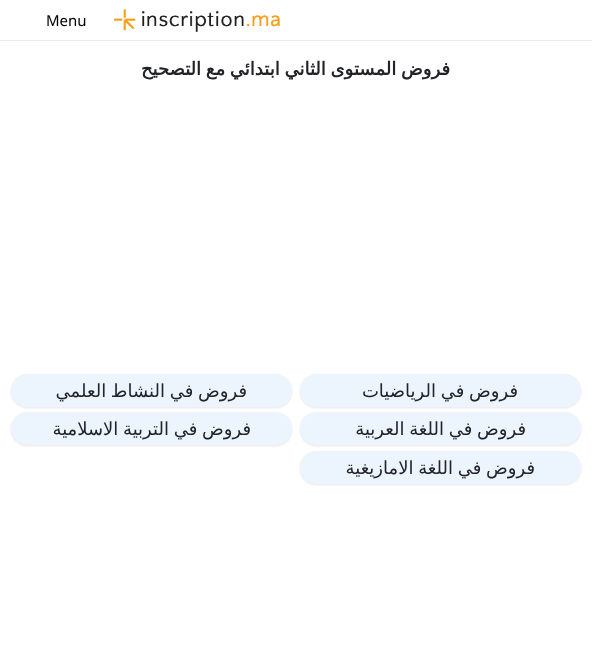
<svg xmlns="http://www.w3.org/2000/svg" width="592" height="659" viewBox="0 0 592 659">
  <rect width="100%" height="100%" fill="#fff"/>
  <path d="M0 40h592v1H0z" fill="#e6ecf0"/>
  <image x="114" y="9" width="166" height="23" href="img/1.png"/>
  <rect x="300" y="375" width="281" height="33" rx="16.5" fill="#0000001a" filter="blur(1px)"/>
  <rect x="300" y="374" width="281" height="33" rx="16.5" fill="#ecf4fe"/>
  <rect x="11" y="375" width="281" height="33" rx="16.5" fill="#0000001a" filter="blur(1px)"/>
  <rect x="11" y="374" width="281" height="33" rx="16.5" fill="#ecf4fe"/>
  <rect x="300" y="413" width="281" height="33" rx="16.5" fill="#0000001a" filter="blur(1px)"/>
  <rect x="300" y="412" width="281" height="33" rx="16.5" fill="#ecf4fe"/>
  <rect x="11" y="413" width="281" height="33" rx="16.5" fill="#0000001a" filter="blur(1px)"/>
  <rect x="11" y="412" width="281" height="33" rx="16.5" fill="#ecf4fe"/>
  <rect x="300" y="452" width="281" height="33" rx="16.5" fill="#0000001a" filter="blur(1px)"/>
  <rect x="300" y="451" width="281" height="33" rx="16.5" fill="#ecf4fe"/>
  <text x="46" y="26" font-family="Noto Sans" font-size="15" fill="#000">Menu</text>
  <text x="450" y="75" word-spacing="-1" font-family="DejaVu Sans" font-size="18" font-weight="bold" direction="rtl" fill="#222326">فروض المستوى الثاني ابتدائي مع التصحيح</text>
  <g font-family="DejaVu Sans" font-size="18" direction="rtl" fill="#222326">
    <text x="518" y="397" word-spacing="-1">فروض في الرياضيات</text>
    <text x="247" y="397" word-spacing="-1">فروض في النشاط العلمي</text>
    <text x="526" y="435" word-spacing="-1">فروض في اللغة العربية</text>
    <text x="251" y="435" word-spacing="-1">فروض في التربية الاسلامية</text>
    <text x="535" y="474" word-spacing="-1">فروض في اللغة الامازيغية</text>
  </g>
</svg>
